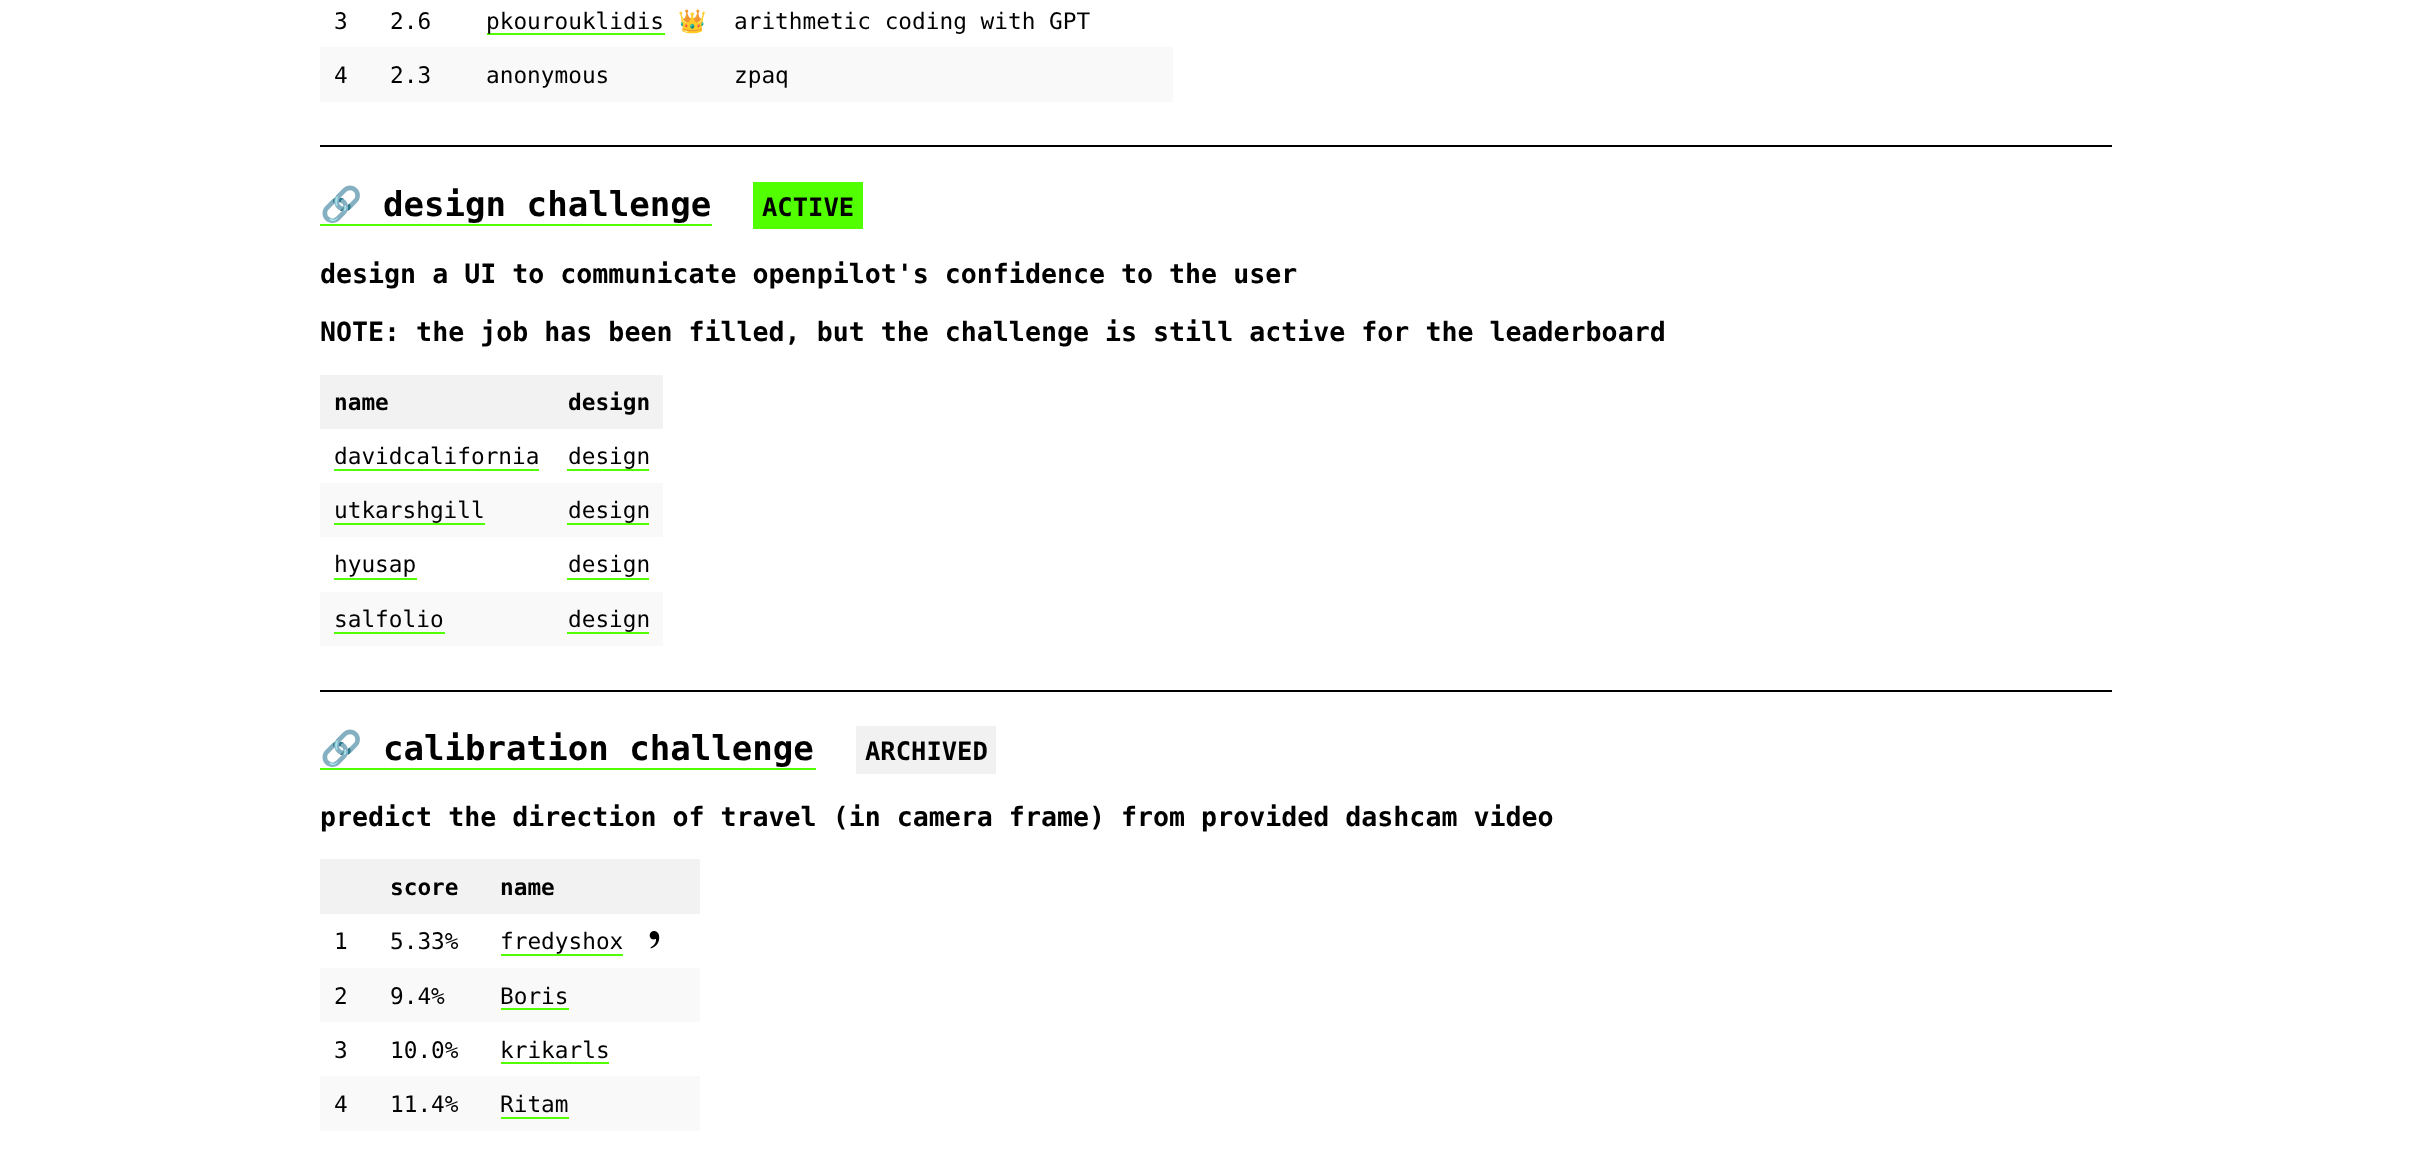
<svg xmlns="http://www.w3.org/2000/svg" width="2431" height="1174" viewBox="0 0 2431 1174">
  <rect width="100%" height="100%" fill="#fff"/>
  <path d="M487 33h178v2H487z" fill="#51ff00"/>
  <path d="M320 47h853v55H320z" fill="#f9f9f9"/>
  <path d="M320 145h1792v2H320z" fill="#000"/>
  <path d="M320 224h392v2H320z" fill="#51ff00"/>
  <path d="M753 182h110v47H753z" fill="#51ff00"/>
  <path d="M320 375h343v54H320z" fill="#f2f2f2"/>
  <path d="M334 469h205v2H334z" fill="#51ff00"/>
  <path d="M567 469h82v2H567z" fill="#51ff00"/>
  <path d="M320 483h343v54H320z" fill="#f9f9f9"/>
  <path d="M334 523h151v2H334z" fill="#51ff00"/>
  <path d="M567 523h82v2H567z" fill="#51ff00"/>
  <path d="M334 578h83v2H334z" fill="#51ff00"/>
  <path d="M567 578h82v2H567z" fill="#51ff00"/>
  <path d="M320 592h343v54H320z" fill="#f9f9f9"/>
  <path d="M334 632h111v2H334z" fill="#51ff00"/>
  <path d="M567 632h82v2H567z" fill="#51ff00"/>
  <path d="M320 690h1792v2H320z" fill="#000"/>
  <path d="M320 768h496v2H320z" fill="#51ff00"/>
  <path d="M856 726h140v48H856z" fill="#f1f1f1"/>
  <path d="M320 859h380v55H320z" fill="#f2f2f2"/>
  <path d="M501 954h122v2H501z" fill="#51ff00"/>
  <image x="649" y="931" width="11" height="18" href="img/1.png"/>
  <path d="M320 968h380v54H320z" fill="#f9f9f9"/>
  <path d="M501 1008h68v2H501z" fill="#51ff00"/>
  <path d="M501 1062h108v2H501z" fill="#51ff00"/>
  <path d="M320 1076h380v55H320z" fill="#f9f9f9"/>
  <path d="M501 1117h68v2H501z" fill="#51ff00"/>
  <g font-family="DejaVu Sans Mono" font-size="22.75" fill="#000">
    <text x="334" y="29">3</text>
    <text x="390" y="29">2.6</text>
    <text x="486" y="29">pkourouklidis</text>
  </g>
  <text x="678" y="29" font-family="Noto Color Emoji" font-size="22.75" fill="#000">👑</text>
  <g font-family="DejaVu Sans Mono" font-size="22.75" fill="#000">
    <text x="734" y="29">arithmetic coding with GPT</text>
    <text x="334" y="83">4</text>
    <text x="390" y="83">2.3</text>
    <text x="486" y="83">anonymous</text>
    <text x="734" y="83">zpaq</text>
  </g>
  <text x="320" y="216" font-family="Noto Color Emoji" font-size="34.1" font-weight="bold" fill="#000">🔗</text>
  <text x="383" y="216" font-family="DejaVu Sans Mono" font-size="34.1" font-weight="bold" fill="#000">design challenge</text>
  <text x="762" y="216" font-family="DejaVu Sans Mono" font-size="25.5" font-weight="bold" fill="#000">ACTIVE</text>
  <g font-family="DejaVu Sans Mono" font-size="26.62" font-weight="bold" fill="#000">
    <text x="320" y="283">design a UI to communicate openpilot's confidence to the user</text>
    <text x="320" y="341">NOTE: the job has been filled, but the challenge is still active for the leaderboard</text>
  </g>
  <g font-family="DejaVu Sans Mono" font-size="22.75" font-weight="bold" fill="#000">
    <text x="334" y="410">name</text>
    <text x="568" y="410">design</text>
  </g>
  <g font-family="DejaVu Sans Mono" font-size="22.75" fill="#000">
    <text x="334" y="464">davidcalifornia</text>
    <text x="568" y="464">design</text>
    <text x="334" y="518">utkarshgill</text>
    <text x="568" y="518">design</text>
    <text x="334" y="572">hyusap</text>
    <text x="568" y="572">design</text>
    <text x="334" y="627">salfolio</text>
    <text x="568" y="627">design</text>
  </g>
  <text x="320" y="760" font-family="Noto Color Emoji" font-size="34.1" font-weight="bold" fill="#000">🔗</text>
  <text x="383" y="760" font-family="DejaVu Sans Mono" font-size="34.1" font-weight="bold" fill="#000">calibration challenge</text>
  <text x="865" y="760" font-family="DejaVu Sans Mono" font-size="25.5" font-weight="bold" fill="#000">ARCHIVED</text>
  <text x="320" y="826" font-family="DejaVu Sans Mono" font-size="26.62" font-weight="bold" fill="#000">predict the direction of travel (in camera frame) from provided dashcam video</text>
  <g font-family="DejaVu Sans Mono" font-size="22.75" font-weight="bold" fill="#000">
    <text x="390" y="895">score</text>
    <text x="500" y="895">name</text>
  </g>
  <g font-family="DejaVu Sans Mono" font-size="22.75" fill="#000">
    <text x="334" y="949">1</text>
    <text x="390" y="949">5.33%</text>
    <text x="500" y="949">fredyshox</text>
    <text x="334" y="1004">2</text>
    <text x="390" y="1004">9.4%</text>
    <text x="500" y="1004">Boris</text>
    <text x="334" y="1058">3</text>
    <text x="390" y="1058">10.0%</text>
    <text x="500" y="1058">krikarls</text>
    <text x="334" y="1112">4</text>
    <text x="390" y="1112">11.4%</text>
    <text x="500" y="1112">Ritam</text>
  </g>
</svg>
